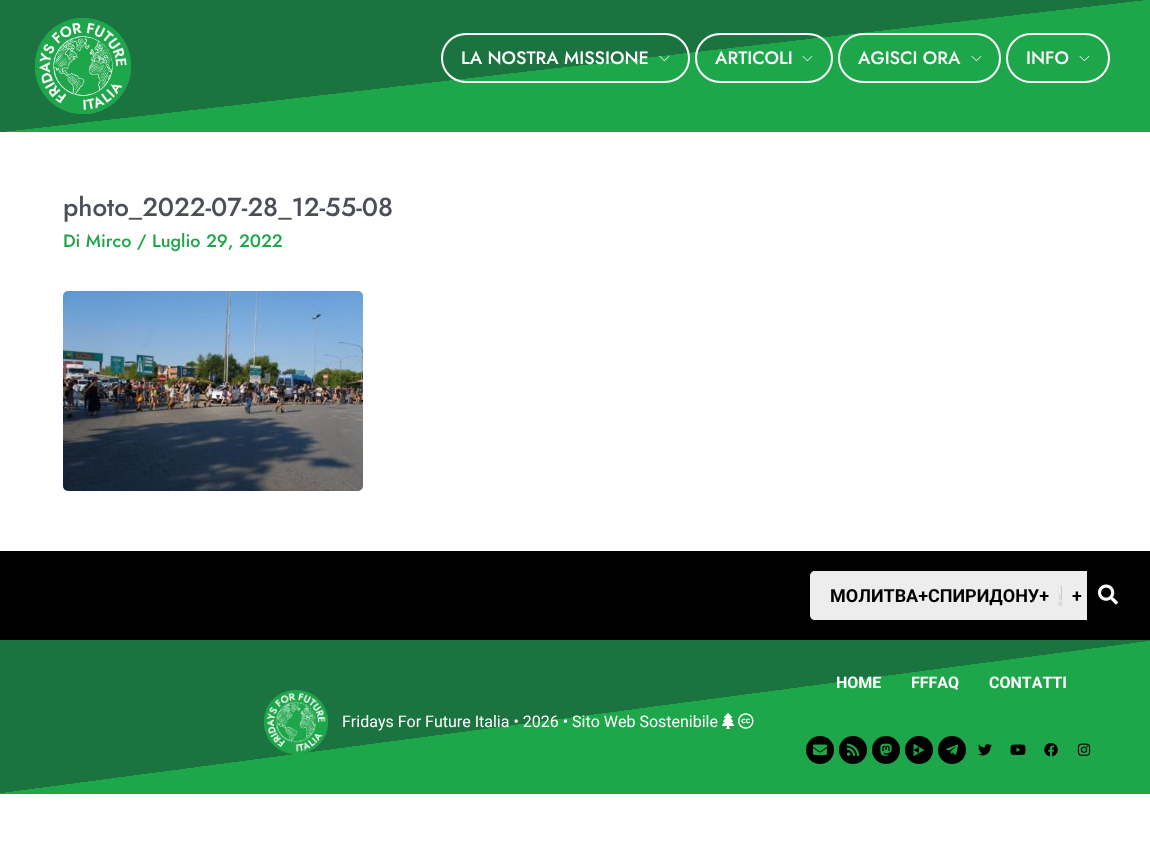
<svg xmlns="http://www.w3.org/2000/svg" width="1150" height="868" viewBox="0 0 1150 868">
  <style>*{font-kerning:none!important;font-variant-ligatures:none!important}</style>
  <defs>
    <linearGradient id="g1" gradientUnits="userSpaceOnUse" x1="560" y1="-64" x2="590" y2="196"><stop offset="0.5" stop-color="#1b7340"/><stop offset="0.5" stop-color="#1da64a"/></linearGradient>
    <clipPath id="clip1"><path d="M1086 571h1v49H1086z"/></clipPath>
    <linearGradient id="g2" gradientUnits="userSpaceOnUse" x1="555" y1="566" x2="595" y2="868"><stop offset="0.5" stop-color="#1b7340"/><stop offset="0.5" stop-color="#1da64a"/></linearGradient>
  </defs>
  <rect width="100%" height="100%" fill="#fff"/>
  <path d="M0 0h1150v132H0z" fill="url(#g1)"/>
  <image x="35" y="18" width="96" height="96" href="img/1.png"/>
  <rect x="442" y="34" width="247" height="48" rx="24" fill="none" stroke="#fff" stroke-width="2"/>
  <image x="659" y="55" width="11" height="7" href="img/2.png"/>
  <rect x="696" y="34" width="136" height="48" rx="24" fill="none" stroke="#fff" stroke-width="2"/>
  <image x="802" y="55" width="11" height="7" href="img/3.png"/>
  <rect x="839" y="34" width="161" height="48" rx="24" fill="none" stroke="#fff" stroke-width="2"/>
  <image x="971" y="55" width="11" height="7" href="img/3.png"/>
  <rect x="1007" y="34" width="102" height="48" rx="24" fill="none" stroke="#fff" stroke-width="2"/>
  <image x="1079" y="55" width="11" height="7" href="img/3.png"/>
  <image x="63" y="291" width="300" height="200" href="img/4.png"/>
  <path d="M0 551h1150v89H0z" fill="#000"/>
  <path d="M815 571H1087V620H815C812 620 810 618 810 615V576C810 573 812 571 815 571Z" fill="#ededed"/>
  <g clip-path="url(#clip1)">
    <path d="M1087 571h43v49H1087z" fill="#00000080" filter="blur(0.5px)"/>
  </g>
  <image x="1098" y="584" width="20" height="21" href="img/5.png"/>
  <path d="M0 640h1150v154H0z" fill="url(#g2)"/>
  <circle cx="820" cy="750" r="14" fill="#000"/>
  <image x="813" y="744" width="14" height="11" href="img/6.png"/>
  <circle cx="853" cy="750" r="14" fill="#000"/>
  <image x="846" y="743" width="14" height="13" href="img/7.png"/>
  <circle cx="886" cy="750" r="14" fill="#000"/>
  <image x="880" y="743" width="12" height="13" href="img/8.png"/>
  <circle cx="919" cy="750" r="14" fill="#000"/>
  <image x="913" y="743" width="12" height="14" href="img/9.png"/>
  <circle cx="952" cy="750" r="14" fill="#000"/>
  <image x="945" y="744" width="14" height="11" href="img/10.png"/>
  <image x="978" y="744" width="14" height="12" href="img/11.png"/>
  <image x="1010" y="744" width="16" height="11" href="img/12.png"/>
  <image x="1044" y="743" width="14" height="14" href="img/13.png"/>
  <image x="1077" y="743" width="14" height="13" href="img/14.png"/>
  <image x="264" y="690" width="64" height="64" href="img/15.png"/>
  <image x="722" y="713" width="12" height="16" href="img/16.png"/>
  <image x="738" y="713" width="16" height="16" href="img/17.png"/>
  <g font-family="Jost" font-size="18" font-weight="500" fill="#fff">
    <text x="461" y="64">LA NOSTRA MISSIONE</text>
    <text x="715" y="64">ARTICOLI</text>
    <text x="858" y="64">AGISCI ORA</text>
    <text x="1026" y="64">INFO</text>
  </g>
  <text x="63" y="216" font-family="Jost" font-size="26" font-weight="500" fill="#4b4f58">photo_2022-07-28_12-55-08</text>
  <text x="63" y="247" font-family="Jost" font-size="18" font-weight="500" fill="#1da64a">Di Mirco / Luglio 29, 2022</text>
  <text x="830" y="602" font-family="Roboto" font-size="18" font-weight="bold" fill="#000">МОЛИТВА+СПИРИДОНУ+</text>
  <text x="1049" y="602" font-family="Noto Color Emoji" font-size="18" font-weight="bold" fill="#000">❕</text>
  <text x="1072" y="602" font-family="Roboto" font-size="18" font-weight="bold" fill="#000">+</text>
  <g font-family="Roboto" font-size="16" font-weight="bold" fill="#fff">
    <text x="836" y="688">HOME</text>
    <text x="911" y="688">FFFAQ</text>
    <text x="989" y="688">CONTATTI</text>
  </g>
  <text x="342" y="727" font-family="Roboto" font-size="16" fill="#fff">Fridays For Future Italia • 2026 • Sito Web Sostenibile</text>
</svg>
